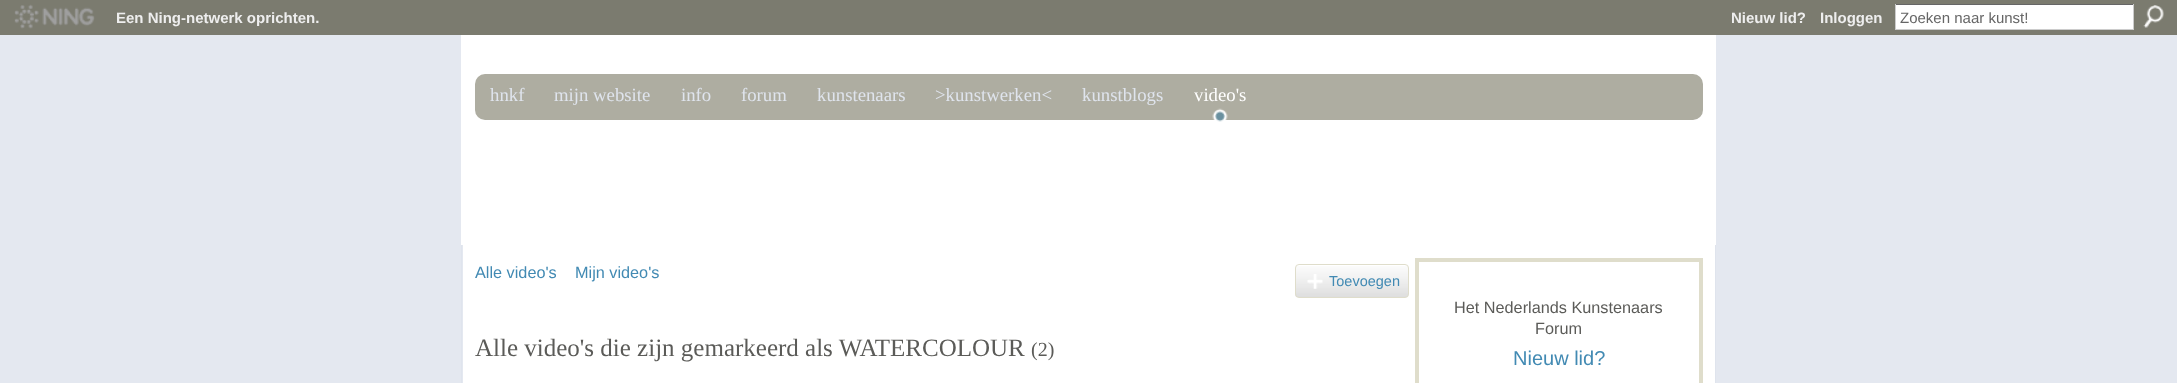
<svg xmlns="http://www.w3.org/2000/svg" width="2177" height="383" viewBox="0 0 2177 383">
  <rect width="100%" height="100%" fill="#e4e8f0"/>
  <path d="M0 0h2177v35H0z" fill="#7b7b6f"/>
  <image x="14" y="4" width="81" height="25" href="img/1.png"/>
  <path d="M1896 5h237v24H1896z" fill="#fff"/>
  <path d="M1895 4h239v1H1895z" fill="#666"/>
  <path d="M2133 4h1v26H2133z" fill="#ccc"/>
  <path d="M1895 29h239v1H1895z" fill="#ccc"/>
  <path d="M1895 4h1v26H1895z" fill="#ccc"/>
  <image x="2143" y="5" width="21" height="23" href="img/2.png"/>
  <path d="M461 35h1255v210H461z" fill="#fff"/>
  <rect x="475" y="74" width="1228" height="46" rx="10" fill="#aeada1"/>
  <image x="1212" y="108" width="16" height="14" href="img/3.png"/>
  <path d="M463 245h1252v138H463z" fill="#fff"/>
  <path d="M461 245H1716V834C1716 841 1711 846 1704 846H474C467 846 461 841 461 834ZM462 245H1715V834C1715 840 1710 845 1704 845H474C468 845 462 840 462 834Z" fill="#dfe4ed" fill-rule="evenodd"/>
  <image x="1295" y="266" width="114" height="32" href="img/4.png"/>
  <rect x="1295.5" y="264.5" width="113" height="33" rx="3.5" fill="none" stroke="#dfddcb"/>
  <image x="1307" y="274" width="16" height="15" href="img/5.png"/>
  <path d="M1417 260h284v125H1417z" fill="none" stroke="#dfddcb" stroke-width="4"/>
  <g font-family="Liberation Sans" font-size="15" font-weight="bold" fill="#eee">
    <text x="116" y="23">Een Ning-netwerk oprichten.</text>
    <text x="1731" y="23">Nieuw lid?</text>
    <text x="1820" y="23">Inloggen</text>
  </g>
  <text x="1900" y="23" font-family="Liberation Sans" font-size="15" fill="#666">Zoeken naar kunst!</text>
  <g font-family="Liberation Serif" font-size="18.75" fill="#dfe4ed">
    <text x="490" y="101">hnkf</text>
    <text x="554" y="101">mijn website</text>
    <text x="681" y="101">info</text>
    <text x="741" y="101">forum</text>
    <text x="817" y="101">kunstenaars</text>
    <text x="935" y="101">&gt;kunstwerken&lt;</text>
    <text x="1082" y="101">kunstblogs</text>
  </g>
  <text x="1194" y="101" font-family="Liberation Serif" font-size="18.75" fill="#fff">video's</text>
  <g font-family="Liberation Sans" font-size="16.25" fill="#428ab3">
    <text x="475" y="278">Alle video's</text>
    <text x="575" y="278">Mijn video's</text>
  </g>
  <text x="1329" y="286" font-family="Liberation Sans" font-size="14.5" fill="#428ab3">Toevoegen</text>
  <text x="475" y="356" font-family="Liberation Serif" font-size="25" fill="#5b5b58">Alle video's die zijn gemarkeerd als WATERCOLOUR</text>
  <text x="1031" y="356" font-family="Liberation Serif" font-size="20" fill="#5b5b58">(2)</text>
  <g font-family="Liberation Sans" font-size="16.25" fill="#5b5b58">
    <text x="1454" y="313">Het Nederlands Kunstenaars</text>
    <text x="1535" y="334">Forum</text>
  </g>
  <text x="1513" y="365" font-family="Liberation Sans" font-size="20" fill="#428ab3">Nieuw lid?</text>
</svg>
